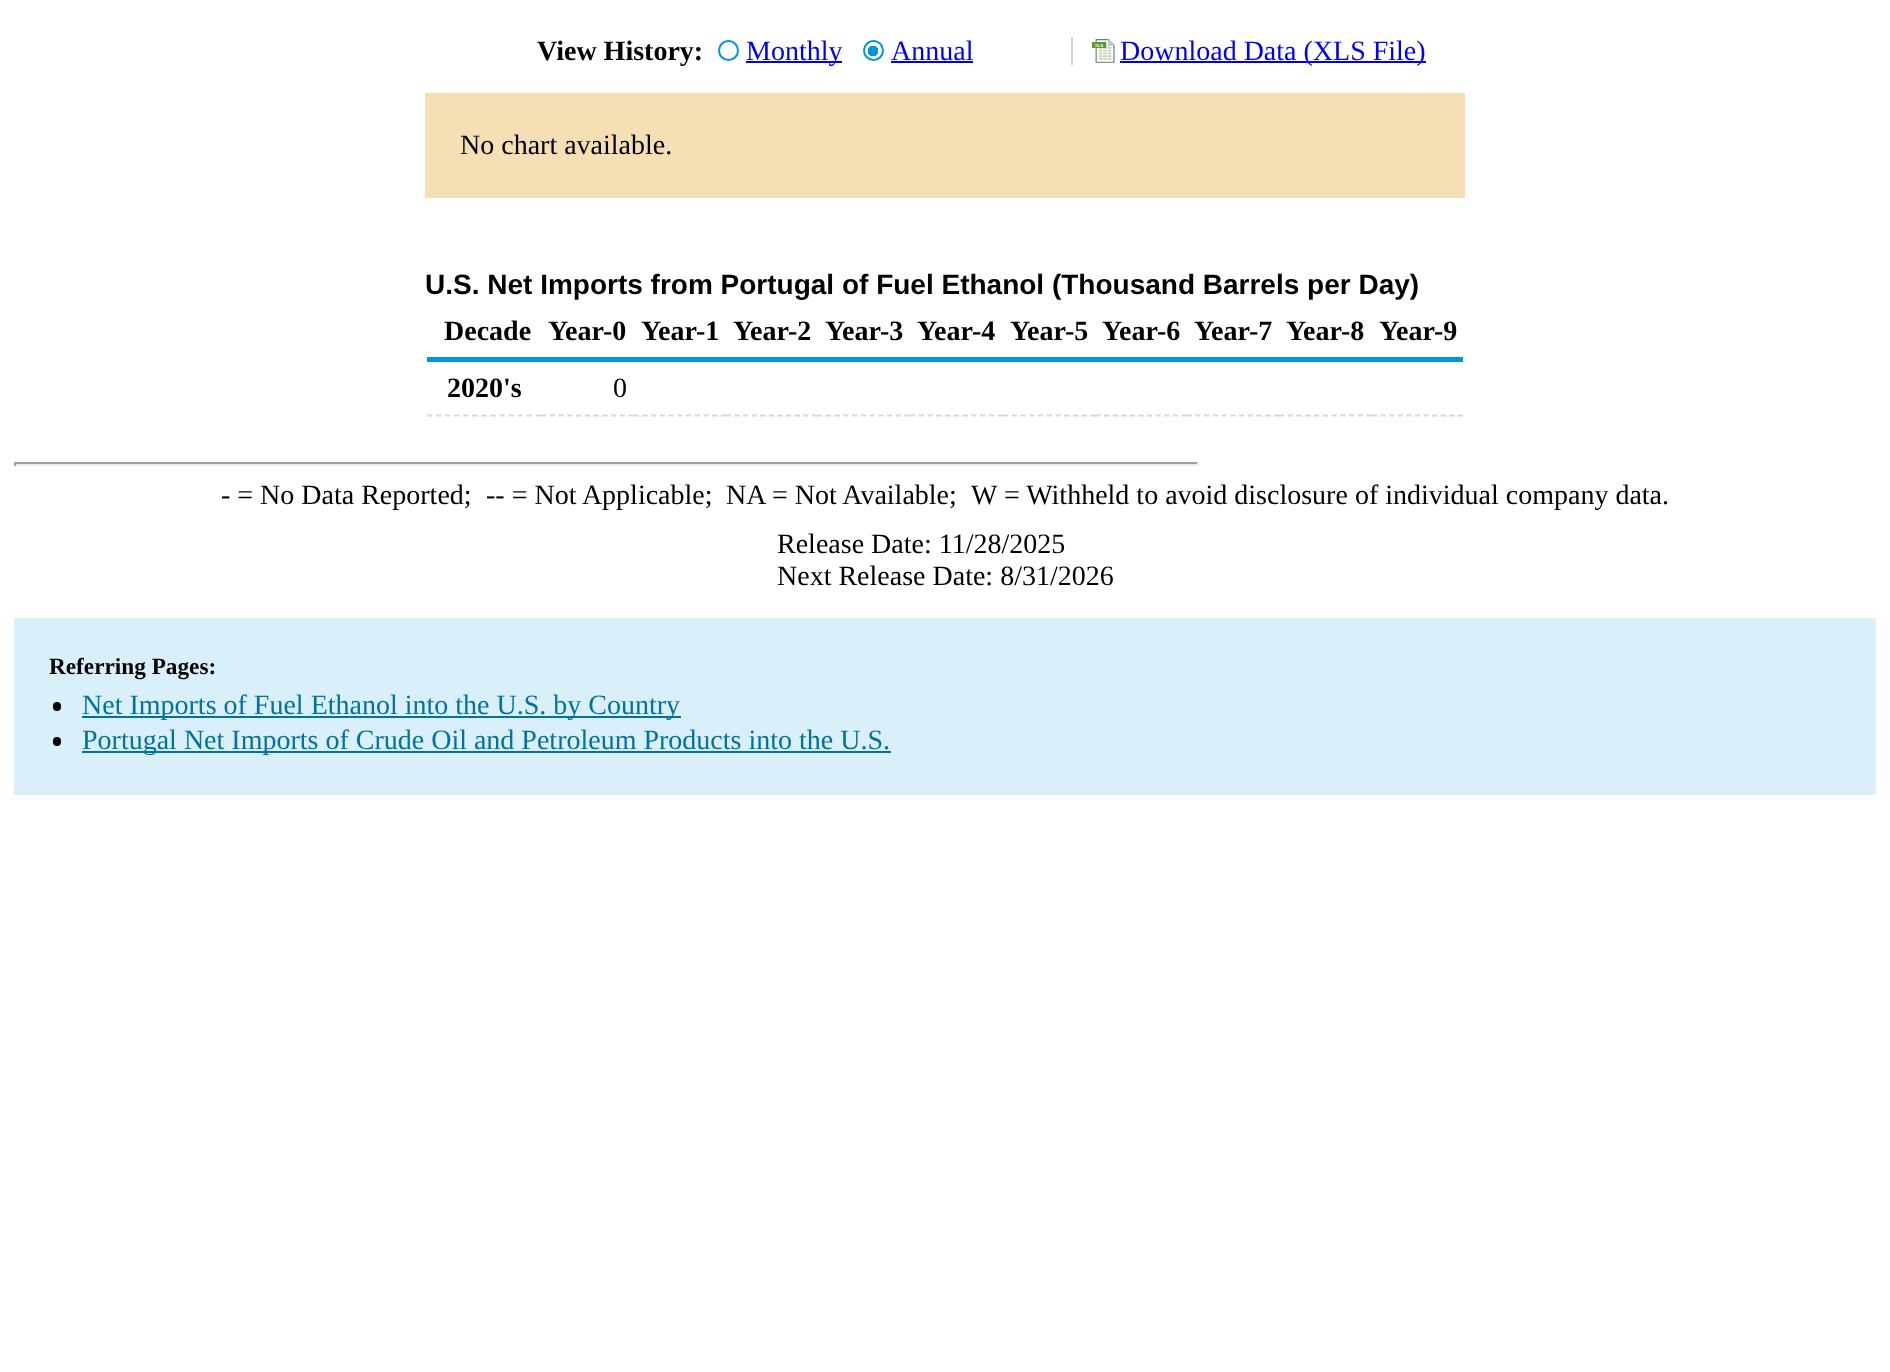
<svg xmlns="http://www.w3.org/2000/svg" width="1890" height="1372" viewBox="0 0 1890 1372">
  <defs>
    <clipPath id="clip1"><rect x="863" y="40" width="21" height="21" rx="10.5"/></clipPath>
    <radialGradient id="g1" gradientUnits="userSpaceOnUse" cx="873" cy="51" r="12"><stop offset="0" stop-color="#0096d7"/><stop offset="0.45" stop-color="#0096d7"/><stop offset="0.45" stop-color="#fff"/></radialGradient>
  </defs>
  <rect width="100%" height="100%" fill="#fff"/>
  <circle cx="728.5" cy="50.5" r="9.5" fill="none" stroke="#0096d7" stroke-width="2"/>
  <path d="M746 61h96v2H746z" fill="#00e"/>
  <g clip-path="url(#clip1)">
    <path d="M865 42h17v18H865z" fill="url(#g1)"/>
  </g>
  <circle cx="873.5" cy="50.5" r="9.5" fill="none" stroke="#0096d7" stroke-width="2"/>
  <path d="M891 61h82v2H891z" fill="#00e"/>
  <path d="M1071 37h2v28H1071z" fill="#d7d7d7"/>
  <image x="1092" y="39" width="23" height="24" href="img/1.png"/>
  <path d="M1120 61h306v2H1120z" fill="#00e"/>
  <path d="M425 93h1040v105H425z" fill="#f6dfb4"/>
  <path d="M427 357h1036v5H427z" fill="#0096d7"/>
  <path d="M427 415.5H541" fill="none" stroke="#d8d8d8" stroke-width="1.8" stroke-dasharray="5.25 3.8"/>
  <path d="M541 415.5H633.5" fill="none" stroke="#d8d8d8" stroke-width="1.8" stroke-dasharray="5.25 3.5"/>
  <path d="M633.5 415.5H726" fill="none" stroke="#d8d8d8" stroke-width="1.8" stroke-dasharray="5.25 3.5"/>
  <path d="M726 415.5H817" fill="none" stroke="#d8d8d8" stroke-width="1.8" stroke-dasharray="5.25 3.32"/>
  <path d="M817 415.5H910" fill="none" stroke="#d8d8d8" stroke-width="1.8" stroke-dasharray="5.25 3.5"/>
  <path d="M910 415.5H1003" fill="none" stroke="#d8d8d8" stroke-width="1.8" stroke-dasharray="5.25 3.5"/>
  <path d="M1003 415.5H1095.5" fill="none" stroke="#d8d8d8" stroke-width="1.8" stroke-dasharray="5.25 3.5"/>
  <path d="M1095.5 415.5H1186.5" fill="none" stroke="#d8d8d8" stroke-width="1.8" stroke-dasharray="5.25 3.32"/>
  <path d="M1186.5 415.5H1279" fill="none" stroke="#d8d8d8" stroke-width="1.8" stroke-dasharray="5.25 3.5"/>
  <path d="M1279 415.5H1372" fill="none" stroke="#d8d8d8" stroke-width="1.8" stroke-dasharray="5.25 3.5"/>
  <path d="M1372 415.5H1463" fill="none" stroke="#d8d8d8" stroke-width="1.8" stroke-dasharray="5.25 3.32"/>
  <path d="M14 462h1185v2H14z" fill="#9f9f9f"/>
  <path d="M1197 462h2v4H1197z" fill="#eee"/>
  <path d="M14 464h1185v2H14z" fill="#eee"/>
  <path d="M14 462h2v4H14z" fill="#9f9f9f"/>
  <path d="M14 618h1862v177H14z" fill="#d9eff9"/>
  <rect x="53" y="702" width="8" height="9" rx="4" fill="#000"/>
  <path d="M82 716h599v2H82z" fill="#0071a1"/>
  <rect x="53" y="737" width="8" height="9" rx="4" fill="#000"/>
  <path d="M82 751h809v2H82z" fill="#0071a1"/>
  <text x="537" y="60" font-family="Liberation Serif" font-size="28" font-weight="bold" fill="#000">View History:</text>
  <g font-family="Liberation Serif" font-size="28" fill="#00e">
    <text x="746" y="60">Monthly</text>
    <text x="891" y="60">Annual</text>
    <text x="1120" y="60">Download Data (XLS File)</text>
  </g>
  <text x="460" y="154" font-family="Liberation Serif" font-size="28" fill="#000">No chart available.</text>
  <text x="425" y="294" font-family="Liberation Sans" font-size="28" font-weight="bold" fill="#000">U.S. Net Imports from Portugal of Fuel Ethanol (Thousand Barrels per Day)</text>
  <g font-family="Liberation Serif" font-size="28" font-weight="bold" fill="#000">
    <text x="444" y="340">Decade</text>
    <text x="548" y="340">Year-0</text>
    <text x="641" y="340">Year-1</text>
    <text x="733" y="340">Year-2</text>
    <text x="825" y="340">Year-3</text>
    <text x="917" y="340">Year-4</text>
    <text x="1010" y="340">Year-5</text>
    <text x="1102" y="340">Year-6</text>
    <text x="1194" y="340">Year-7</text>
    <text x="1286" y="340">Year-8</text>
    <text x="1379" y="340">Year-9</text>
    <text x="447" y="397">2020's</text>
  </g>
  <g font-family="Liberation Serif" font-size="28" fill="#000">
    <text x="613" y="397">0</text>
    <text x="221" y="504">- = No Data Reported;</text>
    <text x="486" y="504">-- = Not Applicable;</text>
    <text x="726" y="504">NA</text>
    <text x="772" y="504">= Not Available;</text>
    <text x="971" y="504">W</text>
    <text x="1004" y="504">= Withheld to avoid disclosure of individual company data.</text>
    <text x="777" y="553">Release Date: 11/28/2025</text>
    <text x="777" y="585">Next Release Date: 8/31/2026</text>
  </g>
  <text x="49" y="674" font-family="Liberation Serif" font-size="23.25" font-weight="bold" fill="#000">Referring Pages:</text>
  <g font-family="Liberation Serif" font-size="28" fill="#0071a1">
    <text x="82" y="714">Net Imports of Fuel Ethanol into the U.S. by Country</text>
    <text x="82" y="749">Portugal Net Imports of Crude Oil and Petroleum Products into the U.S.</text>
  </g>
</svg>
